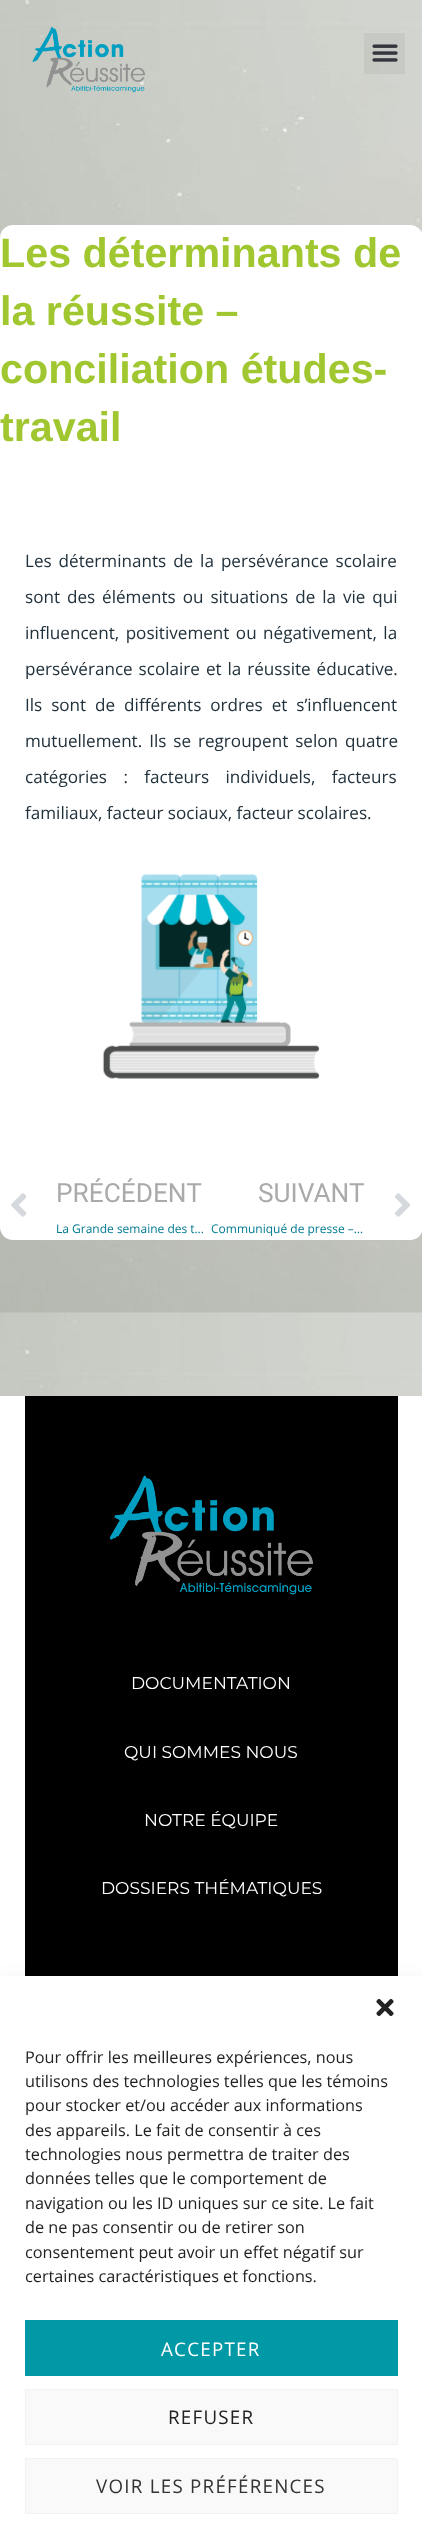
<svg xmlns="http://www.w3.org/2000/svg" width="422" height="2544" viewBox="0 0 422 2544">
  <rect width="100%" height="100%" fill="#fff"/>
  <image x="0" y="0" width="422" height="1396" href="img/3.png"/>
  <image x="32" y="26" width="113" height="67" href="img/1.png"/>
  <path d="M364 33h41v41H364z" fill="#0000000d"/>
  <image x="372" y="44" width="26" height="18" href="img/2.png"/>
  <rect y="225" width="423" height="1015" rx="13" fill="#fff"/>
  <image x="102" y="873" width="218" height="206" href="img/4.png"/>
  <image x="11" y="1193" width="16" height="24" href="img/5.png"/>
  <image x="395" y="1193" width="15" height="24" href="img/6.png"/>
  <path d="M25 1396h373v580H25z" fill="#000"/>
  <image x="109" y="1475" width="204" height="120" href="img/7.png"/>
  <path d="M0 1989h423v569H0z" fill="#00000030" filter="blur(12.5px)"/>
  <path d="M0 1976h422v568H0z" fill="#fff"/>
  <image x="376" y="1998" width="18" height="18" href="img/8.png"/>
  <path d="M25 2320h373v56H25z" fill="#0099a5"/>
  <path d="M25.5 2389.5h372v55H25.5z" fill="#f9f9f9" stroke="#f2f2f2"/>
  <path d="M25.5 2458.5h372v55H25.5z" fill="#f9f9f9" stroke="#f2f2f2"/>
  <g font-family="Liberation Sans" font-size="41.25" font-weight="bold" fill="#a0c730">
    <text x="0" y="267">Les déterminants de</text>
    <text x="0" y="325">la réussite –</text>
    <text x="0" y="383">conciliation études-</text>
    <text x="0" y="441">travail</text>
  </g>
  <g font-family="Open Sans" font-size="17.1" fill="#22323d">
    <text x="25" y="567" word-spacing="2.5">Les déterminants de la persévérance scolaire</text>
    <text x="25" y="603" word-spacing="2.5">sont des éléments ou situations de la vie qui</text>
    <text x="25" y="639" word-spacing="2">influencent, positivement ou négativement, la</text>
    <text x="25" y="675" word-spacing="1.5">persévérance scolaire et la réussite éducative.</text>
    <text x="25" y="711" word-spacing="4.5">Ils sont de différents ordres et s’influencent</text>
    <text x="25" y="747" word-spacing="2.5">mutuellement. Ils se regroupent selon quatre</text>
    <text x="25" y="783" word-spacing="12">catégories : facteurs individuels, facteurs</text>
    <text x="25" y="819">familiaux, facteur sociaux, facteur scolaires.</text>
  </g>
  <text x="56" y="1202" font-family="Roboto" font-size="26.25" fill="#aaa">PRÉCÉDENT</text>
  <text x="56" y="1233" font-family="Open Sans" font-size="12" fill="#007991">La Grande semaine des t…</text>
  <text x="258" y="1202" font-family="Roboto" font-size="26.25" fill="#aaa">SUIVANT</text>
  <text x="211" y="1233" font-family="Open Sans" font-size="12" fill="#007991">Communiqué de presse –…</text>
  <g font-family="Montserrat" font-size="17.1" fill="#fff">
    <text x="131" y="1689">DOCUMENTATION</text>
    <text x="124" y="1758">QUI SOMMES NOUS</text>
    <text x="144" y="1826">NOTRE ÉQUIPE</text>
    <text x="101" y="1894">DOSSIERS THÉMATIQUES</text>
  </g>
  <g font-family="Open Sans" font-size="16.25" fill="#222">
    <text x="25" y="2063">Pour offrir les meilleures expériences, nous</text>
    <text x="25" y="2087">utilisons des technologies telles que les témoins</text>
    <text x="25" y="2111">pour stocker et/ou accéder aux informations</text>
    <text x="25" y="2136">des appareils. Le fait de consentir à ces</text>
    <text x="25" y="2160">technologies nous permettra de traiter des</text>
    <text x="25" y="2184">données telles que le comportement de</text>
    <text x="25" y="2209">navigation ou les ID uniques sur ce site. Le fait</text>
    <text x="25" y="2233">de ne pas consentir ou de retirer son</text>
    <text x="25" y="2258">consentement peut avoir un effet négatif sur</text>
    <text x="25" y="2282">certaines caractéristiques et fonctions.</text>
  </g>
  <text x="161" y="2356" font-family="Open Sans" font-size="18.75" letter-spacing="1.25" fill="#fff">ACCEPTER</text>
  <text x="168" y="2424" font-family="Open Sans" font-size="18.75" letter-spacing="1.25" fill="#222">REFUSER</text>
  <text x="96" y="2493" font-family="Open Sans" font-size="18.75" letter-spacing="1.25" fill="#333">VOIR LES PRÉFÉRENCES</text>
</svg>
